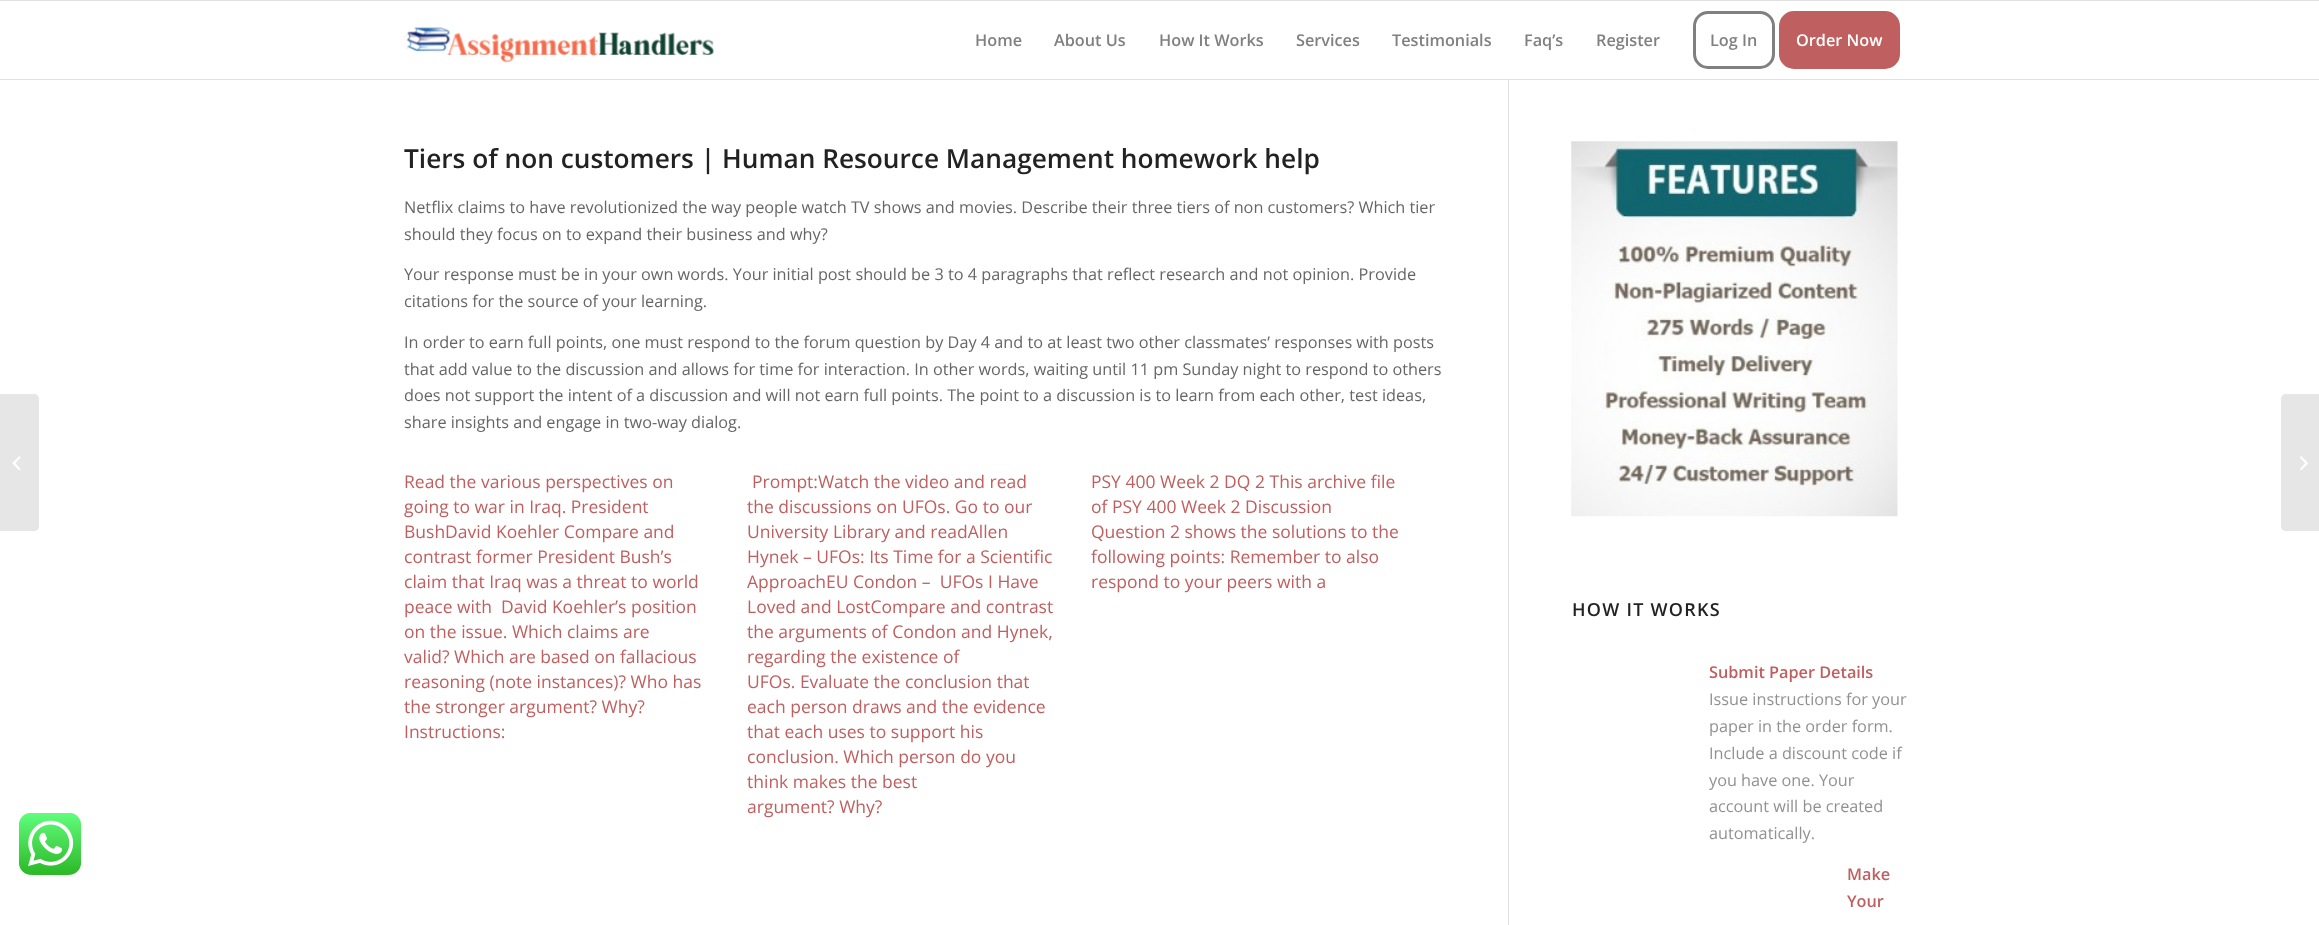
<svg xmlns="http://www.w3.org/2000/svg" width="2319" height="925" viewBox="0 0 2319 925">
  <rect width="100%" height="100%" fill="#fff"/>
  <image x="19" y="813" width="62" height="62" href="img/1.png"/>
  <path d="M0 0h2319v1H0z" fill="#e1e1e1"/>
  <path d="M1508 79h1v846H1508z" fill="#e1e1e1"/>
  <path d="M0 79h2319v1H0z" fill="#e1e1e1"/>
  <image x="404" y="27" width="310" height="36" href="img/2.png"/>
  <rect x="1694.5" y="12.5" width="79" height="55" rx="13.5" fill="none" stroke="#808080" stroke-width="3"/>
  <rect x="1780.5" y="12.5" width="118" height="55" rx="13.5" fill="#c05f5f" stroke="#c05f5f" stroke-width="3"/>
  <path d="M0 394H34C37 394 39 396 39 399V526C39 529 37 531 34 531H0Z" fill="#e6e6e6"/>
  <image x="12" y="456" width="9" height="14" href="img/3.png"/>
  <image x="1571" y="141" width="327" height="376" href="img/4.png"/>
  <path d="M2286 394H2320V531H2286C2283 531 2281 529 2281 526V399C2281 396 2283 394 2286 394Z" fill="#e6e6e6"/>
  <image x="2300" y="456" width="8" height="14" href="img/5.png"/>
  <g font-family="Open Sans" font-size="16.25" font-weight="600" fill="#808080">
    <text x="975" y="46">Home</text>
    <text x="1054" y="46">About Us</text>
    <text x="1159" y="46">How It Works</text>
    <text x="1296" y="46">Services</text>
    <text x="1392" y="46">Testimonials</text>
    <text x="1524" y="46">Faq’s</text>
    <text x="1596" y="46">Register</text>
    <text x="1710" y="46">Log In</text>
  </g>
  <text x="1796" y="46" font-family="Open Sans" font-size="16.25" font-weight="600" fill="#fff">Order Now</text>
  <text x="404" y="168" font-family="Open Sans" font-size="26.25" font-weight="600" fill="#222">Tiers of non customers | Human Resource Management homework help</text>
  <g font-family="Open Sans" font-size="16.25" fill="#666">
    <text x="404" y="213">Netflix claims to have revolutionized the way people watch TV shows and movies. Describe their three tiers of non customers? Which tier</text>
    <text x="404" y="240">should they focus on to expand their business and why?</text>
    <text x="404" y="280">Your response must be in your own words. Your initial post should be 3 to 4 paragraphs that reflect research and not opinion. Provide</text>
    <text x="404" y="307">citations for the source of your learning.</text>
    <text x="404" y="348">In order to earn full points, one must respond to the forum question by Day 4 and to at least two other classmates’ responses with posts</text>
    <text x="404" y="375">that add value to the discussion and allows for time for interaction. In other words, waiting until 11 pm Sunday night to respond to others</text>
    <text x="404" y="401">does not support the intent of a discussion and will not earn full points. The point to a discussion is to learn from each other, test ideas,</text>
    <text x="404" y="428">share insights and engage in two-way dialog.</text>
  </g>
  <g font-family="Open Sans" font-size="17.5" fill="#c05f5f">
    <text x="404" y="488">Read the various perspectives on</text>
    <text x="404" y="513">going to war in Iraq. President</text>
    <text x="404" y="538">BushDavid Koehler Compare and</text>
    <text x="404" y="563">contrast former President Bush’s</text>
    <text x="404" y="588">claim that Iraq was a threat to world</text>
    <text x="404" y="613" xml:space="preserve">peace with  David Koehler’s position</text>
    <text x="404" y="638">on the issue. Which claims are</text>
    <text x="404" y="663">valid? Which are based on fallacious</text>
    <text x="404" y="688">reasoning (note instances)? Who has</text>
    <text x="404" y="713">the stronger argument? Why?</text>
    <text x="404" y="738">Instructions:</text>
    <text x="752" y="488">Prompt:Watch the video and read</text>
    <text x="747" y="513">the discussions on UFOs. Go to our</text>
    <text x="747" y="538">University Library and readAllen</text>
    <text x="747" y="563">Hynek – UFOs: Its Time for a Scientific</text>
    <text x="747" y="588" xml:space="preserve">ApproachEU Condon –  UFOs I Have</text>
    <text x="747" y="613">Loved and LostCompare and contrast</text>
    <text x="747" y="638">the arguments of Condon and Hynek,</text>
    <text x="747" y="663">regarding the existence of</text>
    <text x="747" y="688">UFOs. Evaluate the conclusion that</text>
    <text x="747" y="713">each person draws and the evidence</text>
    <text x="747" y="738">that each uses to support his</text>
    <text x="747" y="763">conclusion. Which person do you</text>
    <text x="747" y="788">think makes the best</text>
    <text x="747" y="813">argument? Why?</text>
    <text x="1091" y="488">PSY 400 Week 2 DQ 2 This archive file</text>
    <text x="1091" y="513">of PSY 400 Week 2 Discussion</text>
    <text x="1091" y="538">Question 2 shows the solutions to the</text>
    <text x="1091" y="563">following points: Remember to also</text>
    <text x="1091" y="588">respond to your peers with a</text>
  </g>
  <text x="1572" y="616" font-family="Open Sans" font-size="18" font-weight="600" letter-spacing="1.25" fill="#222">HOW IT WORKS</text>
  <text x="1709" y="678" font-family="Open Sans" font-size="16.25" font-weight="600" fill="#c05f5f">Submit Paper Details</text>
  <g font-family="Open Sans" font-size="16.25" fill="#919191">
    <text x="1709" y="705">Issue instructions for your</text>
    <text x="1709" y="732">paper in the order form.</text>
    <text x="1709" y="759">Include a discount code if</text>
    <text x="1709" y="786">you have one. Your</text>
    <text x="1709" y="812">account will be created</text>
    <text x="1709" y="839">automatically.</text>
  </g>
  <g font-family="Open Sans" font-size="16.25" font-weight="600" fill="#c05f5f">
    <text x="1847" y="880">Make</text>
    <text x="1847" y="907">Your</text>
  </g>
</svg>
